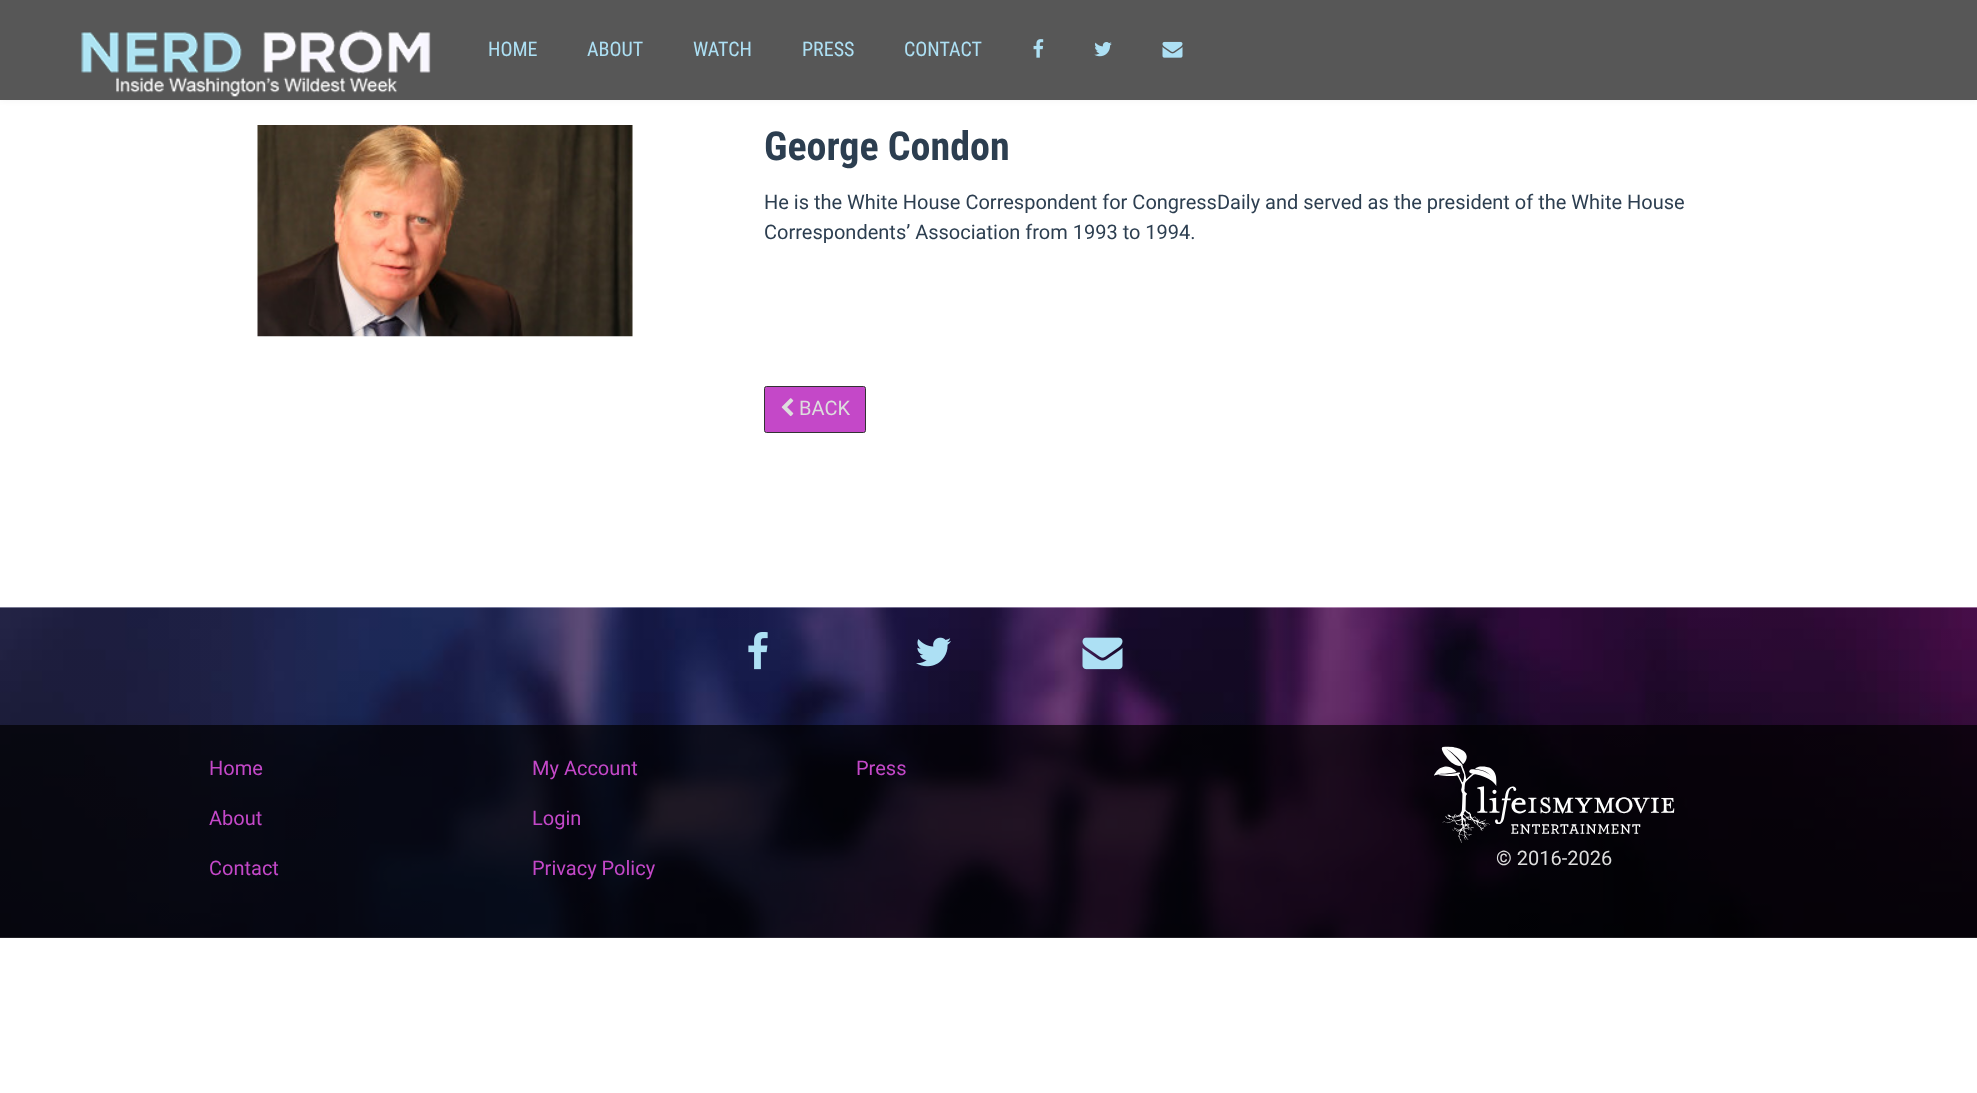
<svg xmlns="http://www.w3.org/2000/svg" width="1977" height="1093" viewBox="0 0 1977 1093">
  <rect width="100%" height="100%" fill="#fff"/>
  <path d="M0 0h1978v100H0z" fill="#0000000d" filter="blur(3px)"/>
  <path d="M0 0h1977v100H0z" fill="#575757"/>
  <image x="81" y="30" width="350" height="67" href="img/1.png"/>
  <image x="1033" y="39" width="11" height="19" href="img/2.png"/>
  <image x="1094" y="42" width="18" height="15" href="img/3.png"/>
  <image x="1162" y="41" width="21" height="17" href="img/4.png"/>
  <image x="257" y="125" width="376" height="212" href="img/5.png"/>
  <rect x="764.5" y="386.5" width="101" height="46" rx="2" fill="#c448c8" stroke="#333"/>
  <image x="781" y="398" width="13" height="19" href="img/6.png"/>
  <image x="0" y="607" width="1977" height="331" href="img/7.png"/>
  <image x="748" y="632" width="20" height="38" href="img/8.png"/>
  <image x="916" y="637" width="35" height="30" href="img/9.png"/>
  <image x="1082" y="637" width="41" height="33" href="img/10.png"/>
  <path d="M0 725h1977v213H0z" fill="#000000b3"/>
  <image x="1434" y="746" width="241" height="97" href="img/11.png"/>
  <g font-family="Roboto Condensed" font-size="20" fill="#ade0f4">
    <text x="488" y="56">HOME</text>
    <text x="587" y="56">ABOUT</text>
    <text x="693" y="56">WATCH</text>
    <text x="802" y="56">PRESS</text>
    <text x="904" y="56">CONTACT</text>
  </g>
  <text x="764" y="160" font-family="Roboto Condensed" font-size="40" font-weight="bold" fill="#2c3e50">George Condon</text>
  <g font-family="Roboto" font-size="20" fill="#2c3e50">
    <text x="764" y="209">He is the White House Correspondent for CongressDaily and served as the president of the White House</text>
    <text x="764" y="239">Correspondents’ Association from 1993 to 1994.</text>
  </g>
  <text x="799" y="415" font-family="Roboto" font-size="20" fill="#ddd">BACK</text>
  <g font-family="Roboto" font-size="20" fill="#c448c8">
    <text x="209" y="775">Home</text>
    <text x="209" y="825">About</text>
    <text x="209" y="875">Contact</text>
    <text x="532" y="775">My Account</text>
    <text x="532" y="825">Login</text>
    <text x="532" y="875">Privacy Policy</text>
    <text x="856" y="775">Press</text>
  </g>
  <text x="1496" y="865" font-family="Roboto" font-size="20" fill="#ddd">© 2016-2026</text>
</svg>
